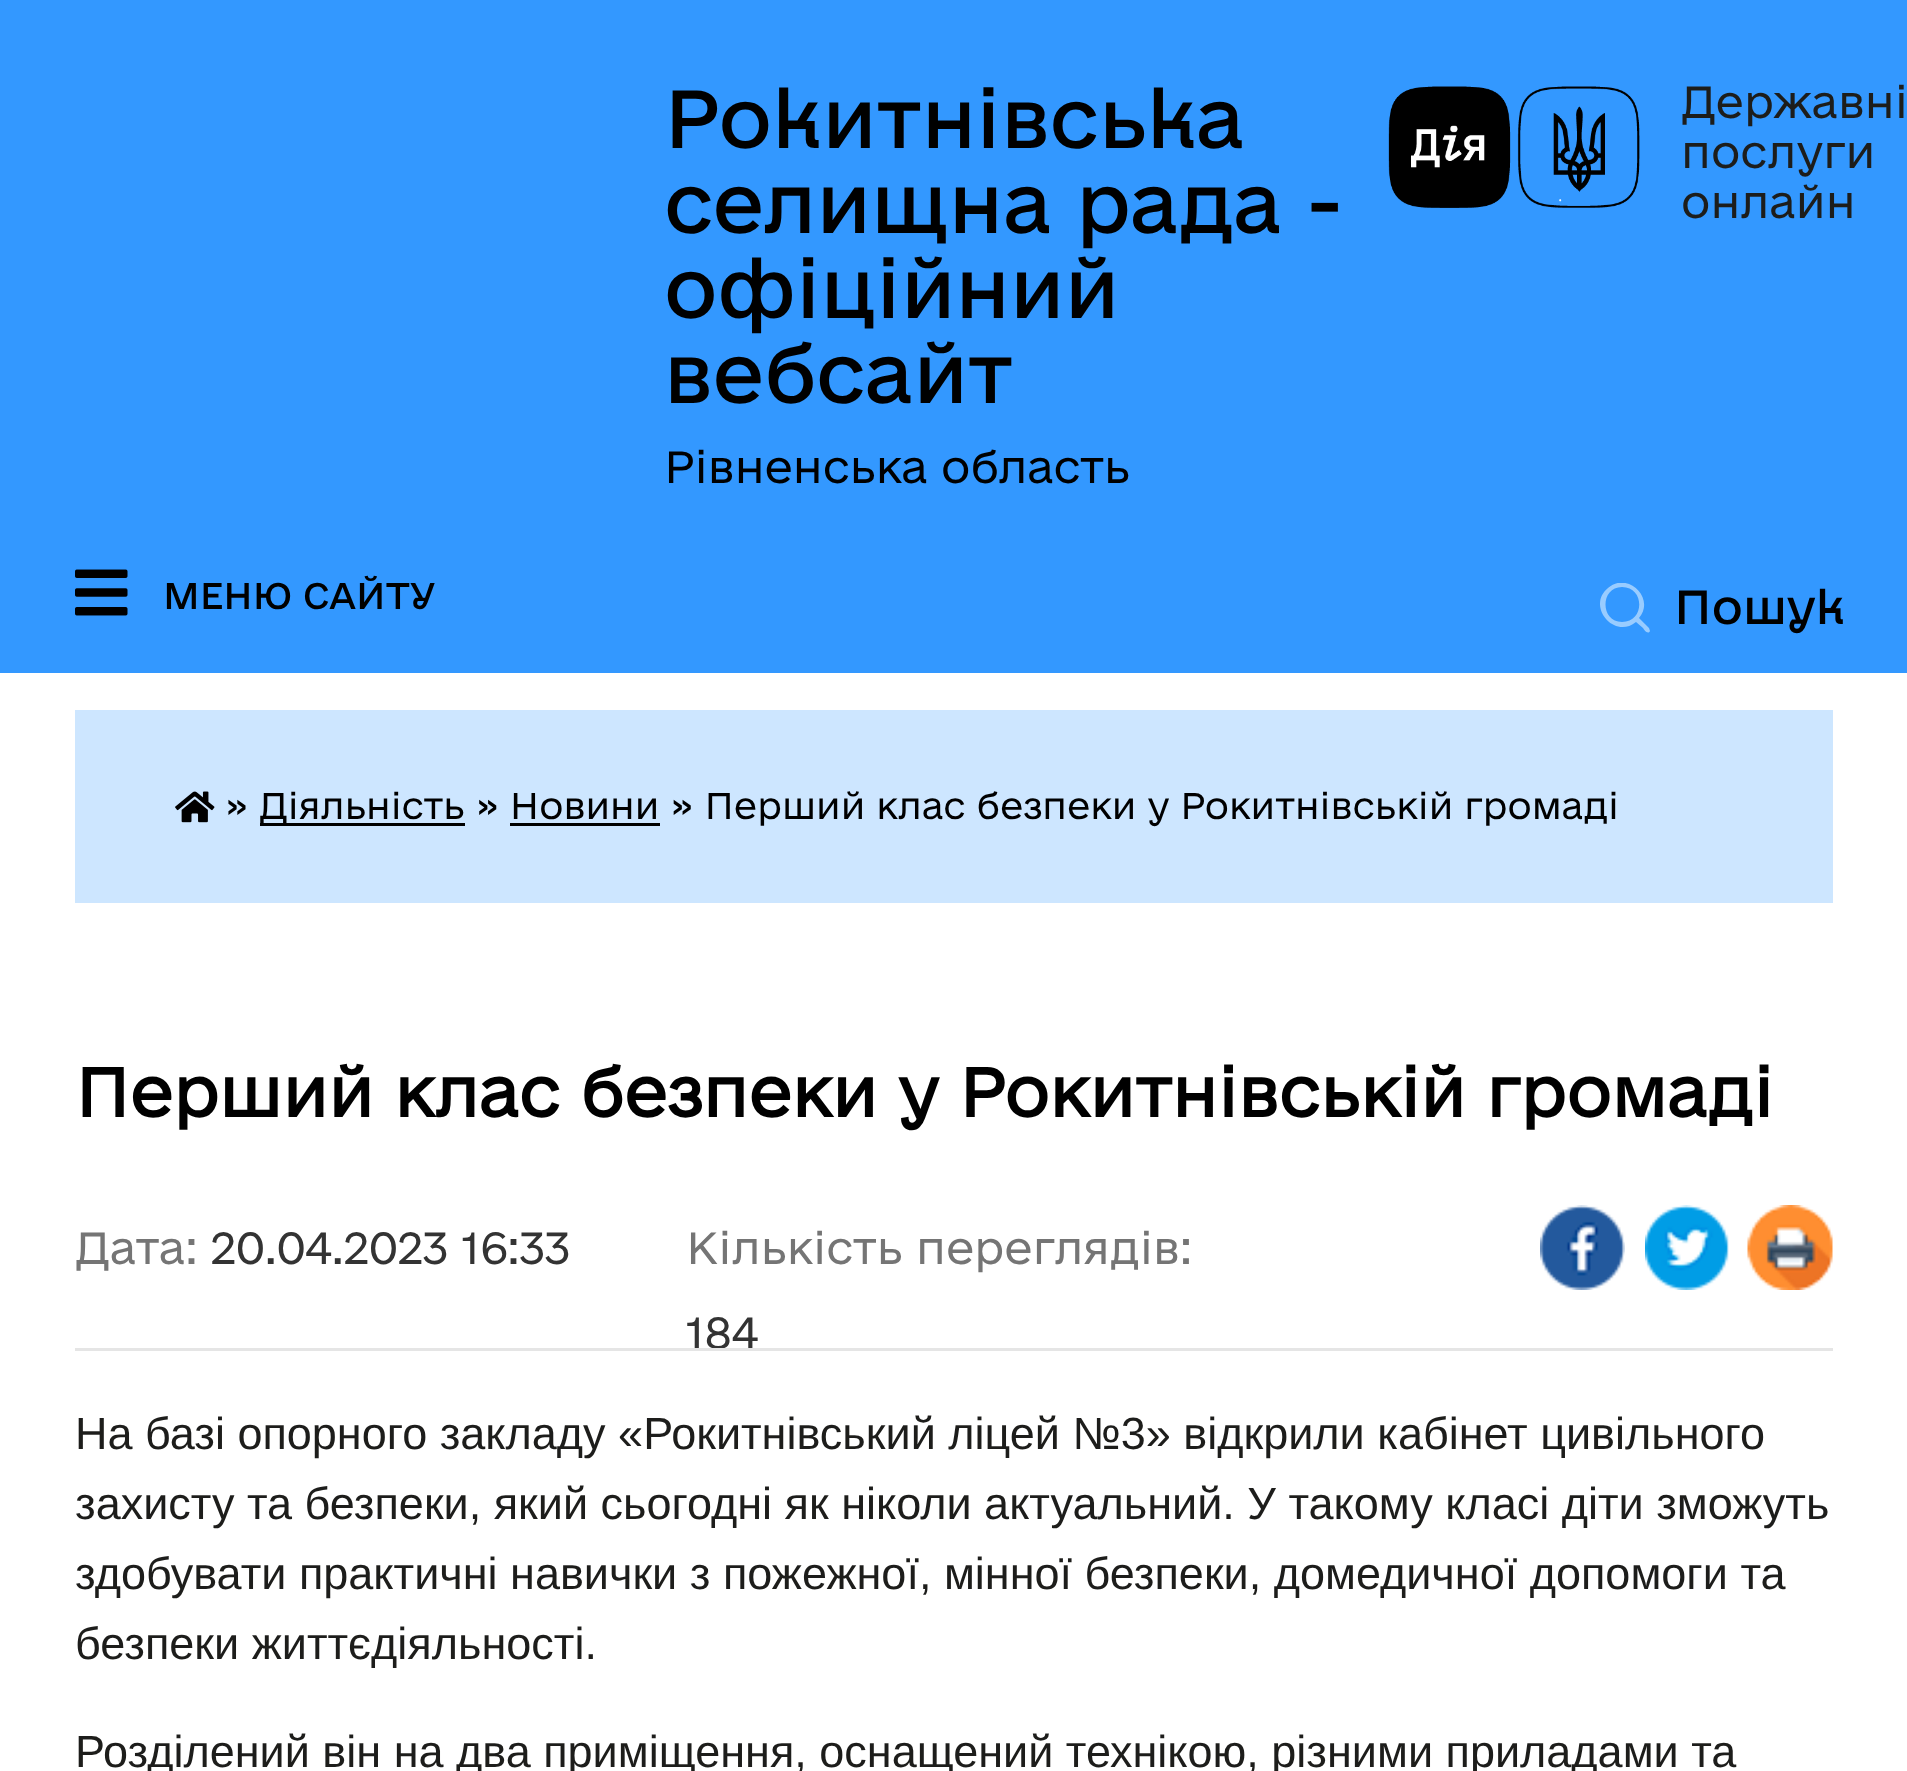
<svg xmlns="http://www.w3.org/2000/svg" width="1907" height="1771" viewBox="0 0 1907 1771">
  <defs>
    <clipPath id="clip1"><path d="M1600 583h50v50H1600z"/></clipPath>
  </defs>
  <rect width="100%" height="100%" fill="#fff"/>
  <path d="M0 0h1907v673H0z" fill="#3398ff"/>
  <image x="1388" y="86" width="252" height="122" href="img/1.png"/>
  <image x="75" y="569" width="53" height="47" href="img/2.png"/>
  <g clip-path="url(#clip1)">
    <path d="M1649 628L1639 618C1656 598 1627 571 1608 588C1586 606 1614 640 1636 622L1643 628C1644 630 1648 635 1650 631ZM1622 622C1600 622 1600 587 1622 587C1645 587 1645 622 1622 622Z" fill="#9cf"/>
  </g>
  <path d="M75 710h1758v193H75z" fill="#cde6ff"/>
  <image x="175" y="791" width="40" height="32" href="img/3.png"/>
  <path d="M260 823h205v3H260z" fill="#000"/>
  <path d="M510 823h150v3H510z" fill="#000"/>
  <image x="1540" y="1205" width="85" height="85" href="img/4.png"/>
  <image x="1645" y="1205" width="84" height="85" href="img/5.png"/>
  <image x="1747" y="1205" width="86" height="85" href="img/6.png"/>
  <g font-family="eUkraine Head" font-size="77.5" fill="#000">
    <text x="664" y="148">Рокитнівська</text>
    <text x="664" y="233">селищна рада -</text>
    <text x="664" y="318">офіційний</text>
    <text x="664" y="403">вебсайт</text>
  </g>
  <text x="664" y="483" font-family="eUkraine" font-size="42.5" font-weight="300" fill="#000">Рівненська область</text>
  <g font-family="eUkraine" font-size="42.5" font-weight="300" fill="#1d1d1b">
    <text x="1681" y="118">Державні</text>
    <text x="1681" y="168">послуги</text>
    <text x="1681" y="218">онлайн</text>
  </g>
  <text x="163" y="609" font-family="eUkraine Head" font-size="35" fill="#000">МЕНЮ САЙТУ</text>
  <text x="1674" y="624" font-family="eUkraine Head" font-size="45" fill="#000">Пошук</text>
  <g font-family="eUkraine" font-size="35" font-weight="300" fill="#000">
    <text x="225" y="819">»</text>
    <text x="259" y="819">Діяльність » Новини » Перший клас безпеки у Рокитнівській громаді</text>
  </g>
  <text x="75" y="1117" font-family="eUkraine" font-size="65" font-weight="bold" fill="#000">Перший клас безпеки у Рокитнівській громаді</text>
  <text x="75" y="1264" font-family="eUkraine" font-size="42.5" font-weight="300" fill="#757575">Дата:</text>
  <text x="211" y="1264" font-family="eUkraine" font-size="42.5" font-weight="300" fill="#333">20.04.2023 16:33</text>
  <text x="686" y="1264" font-family="eUkraine" font-size="42.5" font-weight="300" fill="#757575">Кількість переглядів:</text>
  <text x="686" y="1349" font-family="eUkraine" font-size="42.5" font-weight="300" fill="#333">184</text>
  <path d="M75 1348h1758v3H75z" fill="#e5e5e5"/>
  <g font-family="Liberation Sans" font-size="45" fill="#1d1d1b">
    <text x="75" y="1449">На базі опорного закладу «Рокитнівський ліцей №3» відкрили кабінет цивільного</text>
    <text x="75" y="1519">захисту та безпеки, який сьогодні як ніколи актуальний. У такому класі діти зможуть</text>
    <text x="75" y="1589">здобувати практичні навички з пожежної, мінної безпеки, домедичної допомоги та</text>
    <text x="75" y="1659">безпеки життєдіяльності.</text>
    <text x="75" y="1767">Розділений він на два приміщення, оснащений технікою, різними приладами та</text>
  </g>
</svg>
